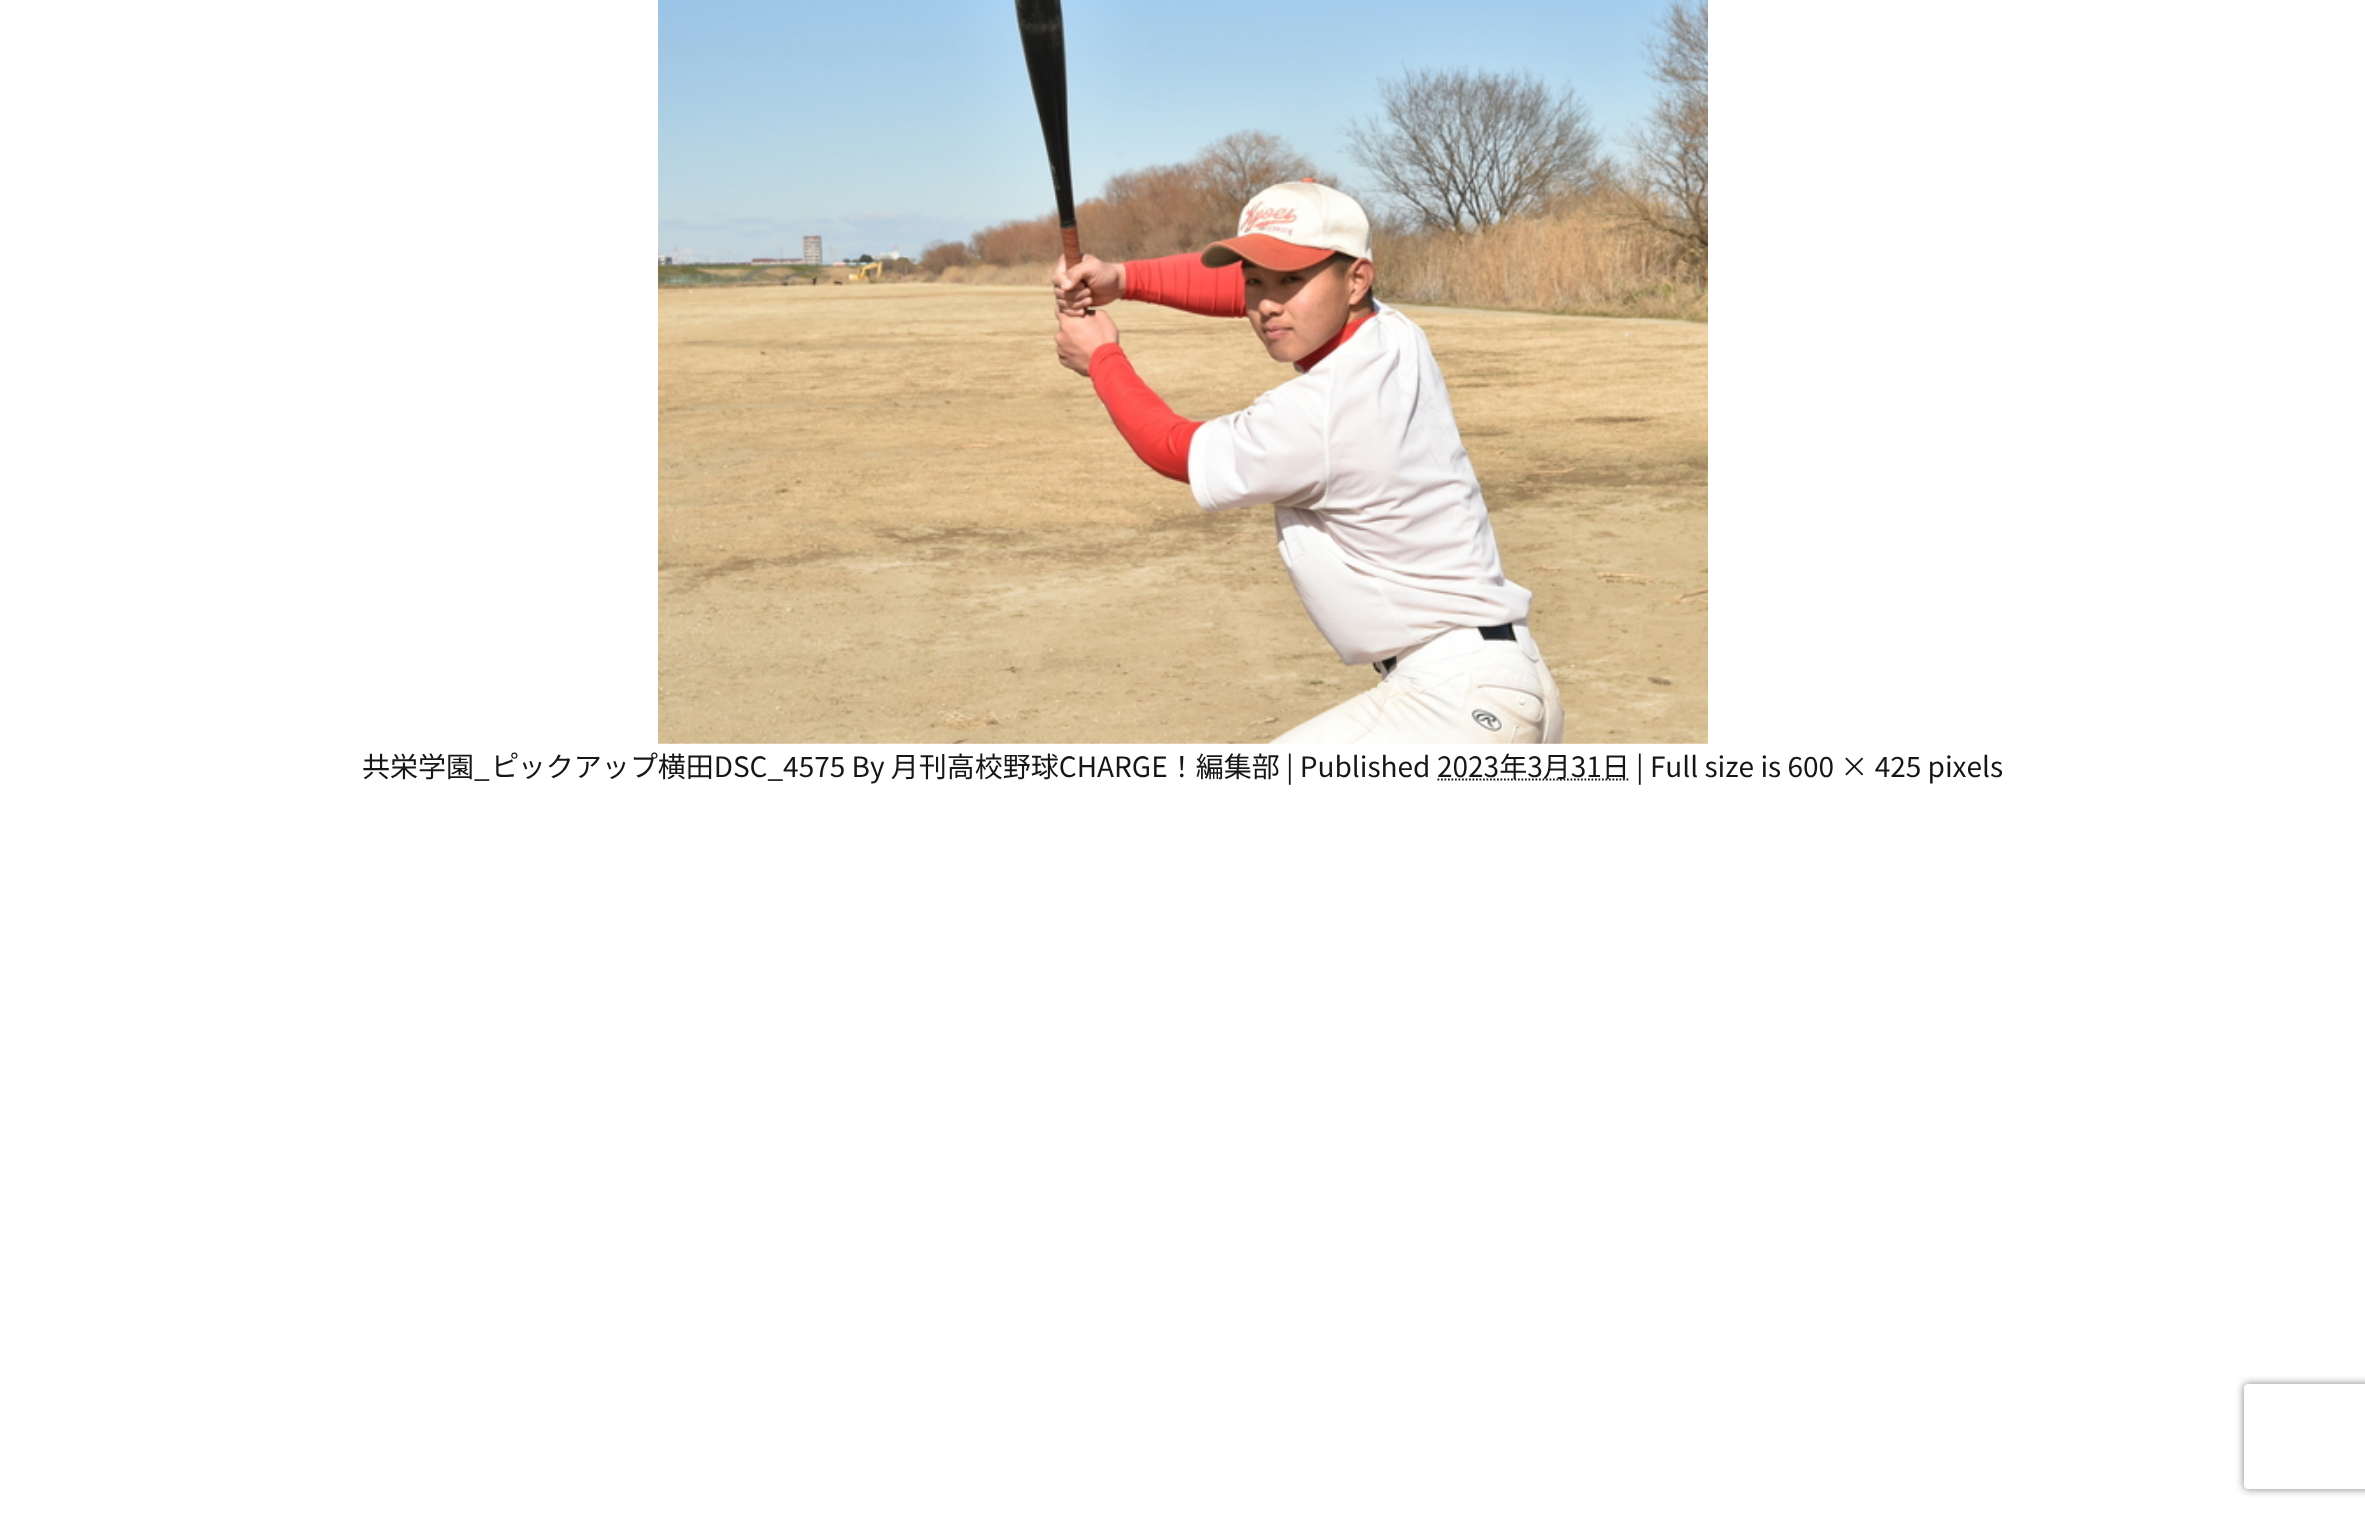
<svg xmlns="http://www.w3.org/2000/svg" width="2365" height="1513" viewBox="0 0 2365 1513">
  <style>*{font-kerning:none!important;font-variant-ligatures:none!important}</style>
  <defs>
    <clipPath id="clip1"><path d="M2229 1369H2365V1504H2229ZM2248 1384H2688C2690 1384 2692 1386 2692 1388V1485C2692 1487 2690 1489 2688 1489H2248C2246 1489 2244 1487 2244 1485V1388C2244 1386 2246 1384 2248 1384Z" clip-rule="evenodd"/></clipPath>
  </defs>
  <rect width="100%" height="100%" fill="#fff"/>
  <image x="658" y="0" width="1050" height="744" href="img/1.png"/>
  <path d="M1437.5 779.5H1630" fill="none" stroke="#161616" stroke-width="1.8" stroke-dasharray="1.75 1.75"/>
  <g clip-path="url(#clip1)">
    <rect x="2244" y="1384" width="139" height="105" rx="4" fill="#808080" filter="blur(4.5px)"/>
  </g>
  <g font-family="Noto Sans JP" font-size="28" fill="#161616">
    <text x="362" y="777">共栄学園_ピックアップ横田DSC_4575 By 月刊高校野球CHARGE！編集部 | Published</text>
    <text x="1437" y="777">2023年3月31日 | Full size is 600 × 425 pixels</text>
  </g>
</svg>
